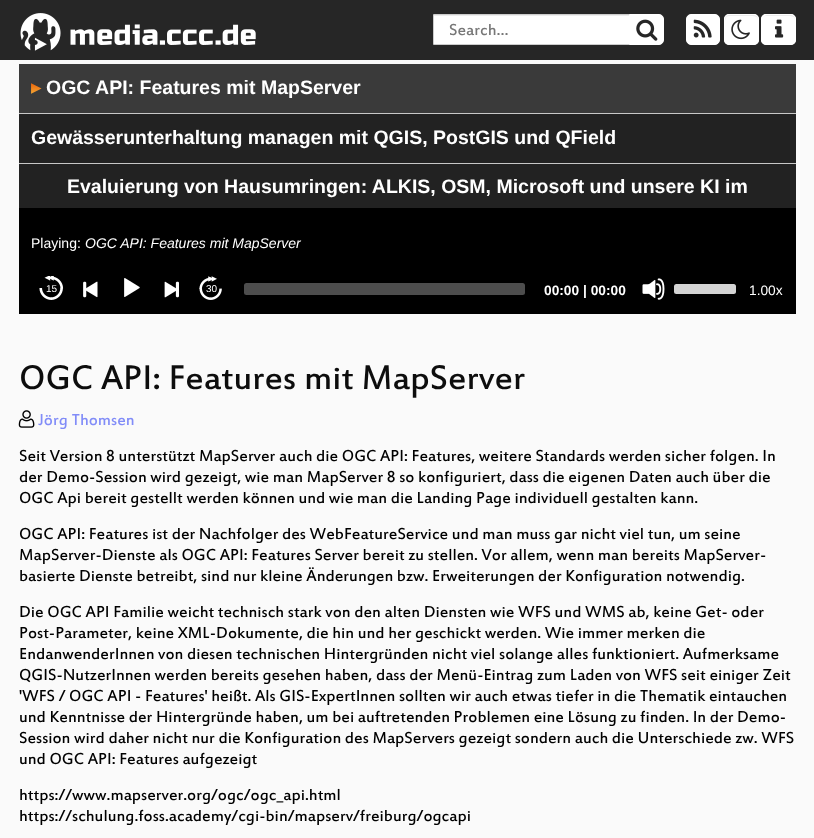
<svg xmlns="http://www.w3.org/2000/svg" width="814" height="838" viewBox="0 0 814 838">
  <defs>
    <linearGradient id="g1" gradientUnits="userSpaceOnUse" x1="36" y1="81" x2="36" y2="95"><stop offset="0" stop-color="#eb5802"/><stop offset="1" stop-color="#f3ad39"/></linearGradient>
  </defs>
  <rect width="100%" height="100%" fill="#fafafa"/>
  <path d="M0 0h814v60H0z" fill="#262626"/>
  <image x="20" y="13" width="236" height="38" href="img/1.png"/>
  <path d="M434 16h195v28H434z" fill="#fff"/>
  <path d="M434 15h195v1H434z" fill="#ececec"/>
  <path d="M433.5 14.5h196v30H433.5z" fill="none" stroke="#ccc"/>
  <path d="M629.5 14.5H659C661.5 14.5 663.5 16.5 663.5 19V40C663.5 42.5 661.5 44.5 659 44.5H629.5Z" fill="#fff" stroke="#fff"/>
  <image x="636" y="19" width="22" height="22" href="img/2.png"/>
  <rect x="686.5" y="14.5" width="33" height="30" rx="4.5" fill="#fff" stroke="#fff"/>
  <image x="693" y="19" width="19" height="19" href="img/3.png"/>
  <rect x="724" y="14" width="35" height="31" rx="5" fill="#fff"/>
  <path d="M729 16H750C756.5 16 758 17 758 21V19C758 17 756 15 754 15H729C727 15 725 17 725 19V24C725 21 725 16 729 16ZM725 41V38Z" fill="#ececec" fill-rule="evenodd"/>
  <rect x="724.5" y="14.5" width="34" height="30" rx="4.5" fill="none" stroke="#fff"/>
  <image x="731" y="19" width="19" height="21" href="img/4.png"/>
  <rect x="761" y="14" width="35" height="31" rx="5" fill="#fff"/>
  <path d="M766 16H787C793.5 16 795 17 795 21V19C795 17 793 15 791 15H767C765.5 15 764.5 16 763.5 17C764 16.5 765 16 766 16Z" fill="#ececec"/>
  <rect x="761.5" y="14.5" width="34" height="30" rx="4.5" fill="none" stroke="#fff"/>
  <image x="775" y="19" width="9" height="19" href="img/5.png"/>
  <path d="M19 208h777v106H19z" fill="#000"/>
  <path d="M19 114h777v94H19z" fill="#222"/>
  <path d="M19 64h777v49H19z" fill="#3a3a3a"/>
  <path d="M19 113h777v1H19z" fill="#c8c8c8"/>
  <path d="M19 163h777v1H19z" fill="#c8c8c8"/>
  <image x="39" y="276" width="25" height="24" href="img/6.png"/>
  <image x="83" y="281" width="15" height="17" href="img/7.png"/>
  <image x="124" y="278" width="16" height="19" href="img/8.png"/>
  <image x="164" y="281" width="15" height="17" href="img/9.png"/>
  <image x="199" y="276" width="23" height="24" href="img/10.png"/>
  <rect x="244" y="283" width="281" height="12" rx="2.5" fill="#4d4d4d"/>
  <image x="642" y="278" width="23" height="22" href="img/11.png"/>
  <rect x="674" y="284" width="62" height="10" rx="2.5" fill="#282828"/>
  <rect x="674" y="284" width="62" height="10" rx="2.5" fill="#ffffffcc"/>
  <image x="18" y="410" width="17" height="18" href="img/12.png"/>
  <text x="449" y="35" font-family="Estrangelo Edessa" font-size="17.5" fill="#777">Search…</text>
  <text x="31" y="92" font-family="DejaVu Sans" font-size="13" font-weight="bold" fill="url(#g1)">▶</text>
  <g font-family="Liberation Sans" font-size="19.5" font-weight="bold" fill="#fff">
    <text x="46" y="94">OGC API: Features mit MapServer</text>
    <text x="31" y="144">Gewässerunterhaltung managen mit QGIS, PostGIS und QField</text>
    <text x="67" y="193">Evaluierung von Hausumringen: ALKIS, OSM, Microsoft und unsere KI im</text>
  </g>
  <text x="31" y="248" font-family="Liberation Sans" font-size="14" fill="#fff">Playing:</text>
  <text x="85" y="248" font-family="Liberation Sans" font-size="14" font-style="italic" fill="#fff">OGC API: Features mit MapServer</text>
  <g font-family="Liberation Sans" font-size="10" fill="#fff">
    <text x="46" y="292">15</text>
    <text x="206" y="292">30</text>
  </g>
  <text x="544" y="295" font-family="Liberation Sans" font-size="13.75" font-weight="bold" fill="#fff">00:00 | 00:00</text>
  <text x="749" y="295" font-family="Liberation Sans" font-size="13.75" fill="#fff">1.00x</text>
  <text x="19" y="389" font-family="Estrangelo Edessa" font-size="37.5" fill="#0d0d0d">OGC API: Features mit MapServer</text>
  <text x="38" y="425" font-family="Estrangelo Edessa" font-size="17.5" fill="#818cf8">Jörg Thomsen</text>
  <g font-family="Estrangelo Edessa" font-size="17.5" fill="#000">
    <text x="19" y="461">Seit Version 8 unterstützt MapServer auch die OGC API: Features, weitere Standards werden sicher folgen. In</text>
    <text x="19" y="482">der Demo-Session wird gezeigt, wie man MapServer 8 so konfiguriert, dass die eigenen Daten auch über die</text>
    <text x="19" y="503">OGC Api bereit gestellt werden können und wie man die Landing Page individuell gestalten kann.</text>
    <text x="19" y="539">OGC API: Features ist der Nachfolger des WebFeatureService und man muss gar nicht viel tun, um seine</text>
    <text x="19" y="560">MapServer-Dienste als OGC API: Features Server bereit zu stellen. Vor allem, wenn man bereits MapServer-</text>
    <text x="19" y="581">basierte Dienste betreibt, sind nur kleine Änderungen bzw. Erweiterungen der Konfiguration notwendig.</text>
    <text x="19" y="617">Die OGC API Familie weicht technisch stark von den alten Diensten wie WFS und WMS ab, keine Get- oder</text>
    <text x="19" y="638">Post-Parameter, keine XML-Dokumente, die hin und her geschickt werden. Wie immer merken die</text>
    <text x="19" y="659">EndanwenderInnen von diesen technischen Hintergründen nicht viel solange alles funktioniert. Aufmerksame</text>
    <text x="19" y="680">QGIS-NutzerInnen werden bereits gesehen haben, dass der Menü-Eintrag zum Laden von WFS seit einiger Zeit</text>
    <text x="19" y="701">'WFS / OGC API - Features' heißt. Als GIS-ExpertInnen sollten wir auch etwas tiefer in die Thematik eintauchen</text>
    <text x="19" y="722">und Kenntnisse der Hintergründe haben, um bei auftretenden Problemen eine Lösung zu finden. In der Demo-</text>
    <text x="19" y="743">Session wird daher nicht nur die Konfiguration des MapServers gezeigt sondern auch die Unterschiede zw. WFS</text>
    <text x="19" y="764">und OGC API: Features aufgezeigt</text>
    <text x="19" y="800">https://www.mapserver.org/ogc/ogc_api.html</text>
    <text x="19" y="821">https://schulung.foss.academy/cgi-bin/mapserv/freiburg/ogcapi</text>
  </g>
</svg>
